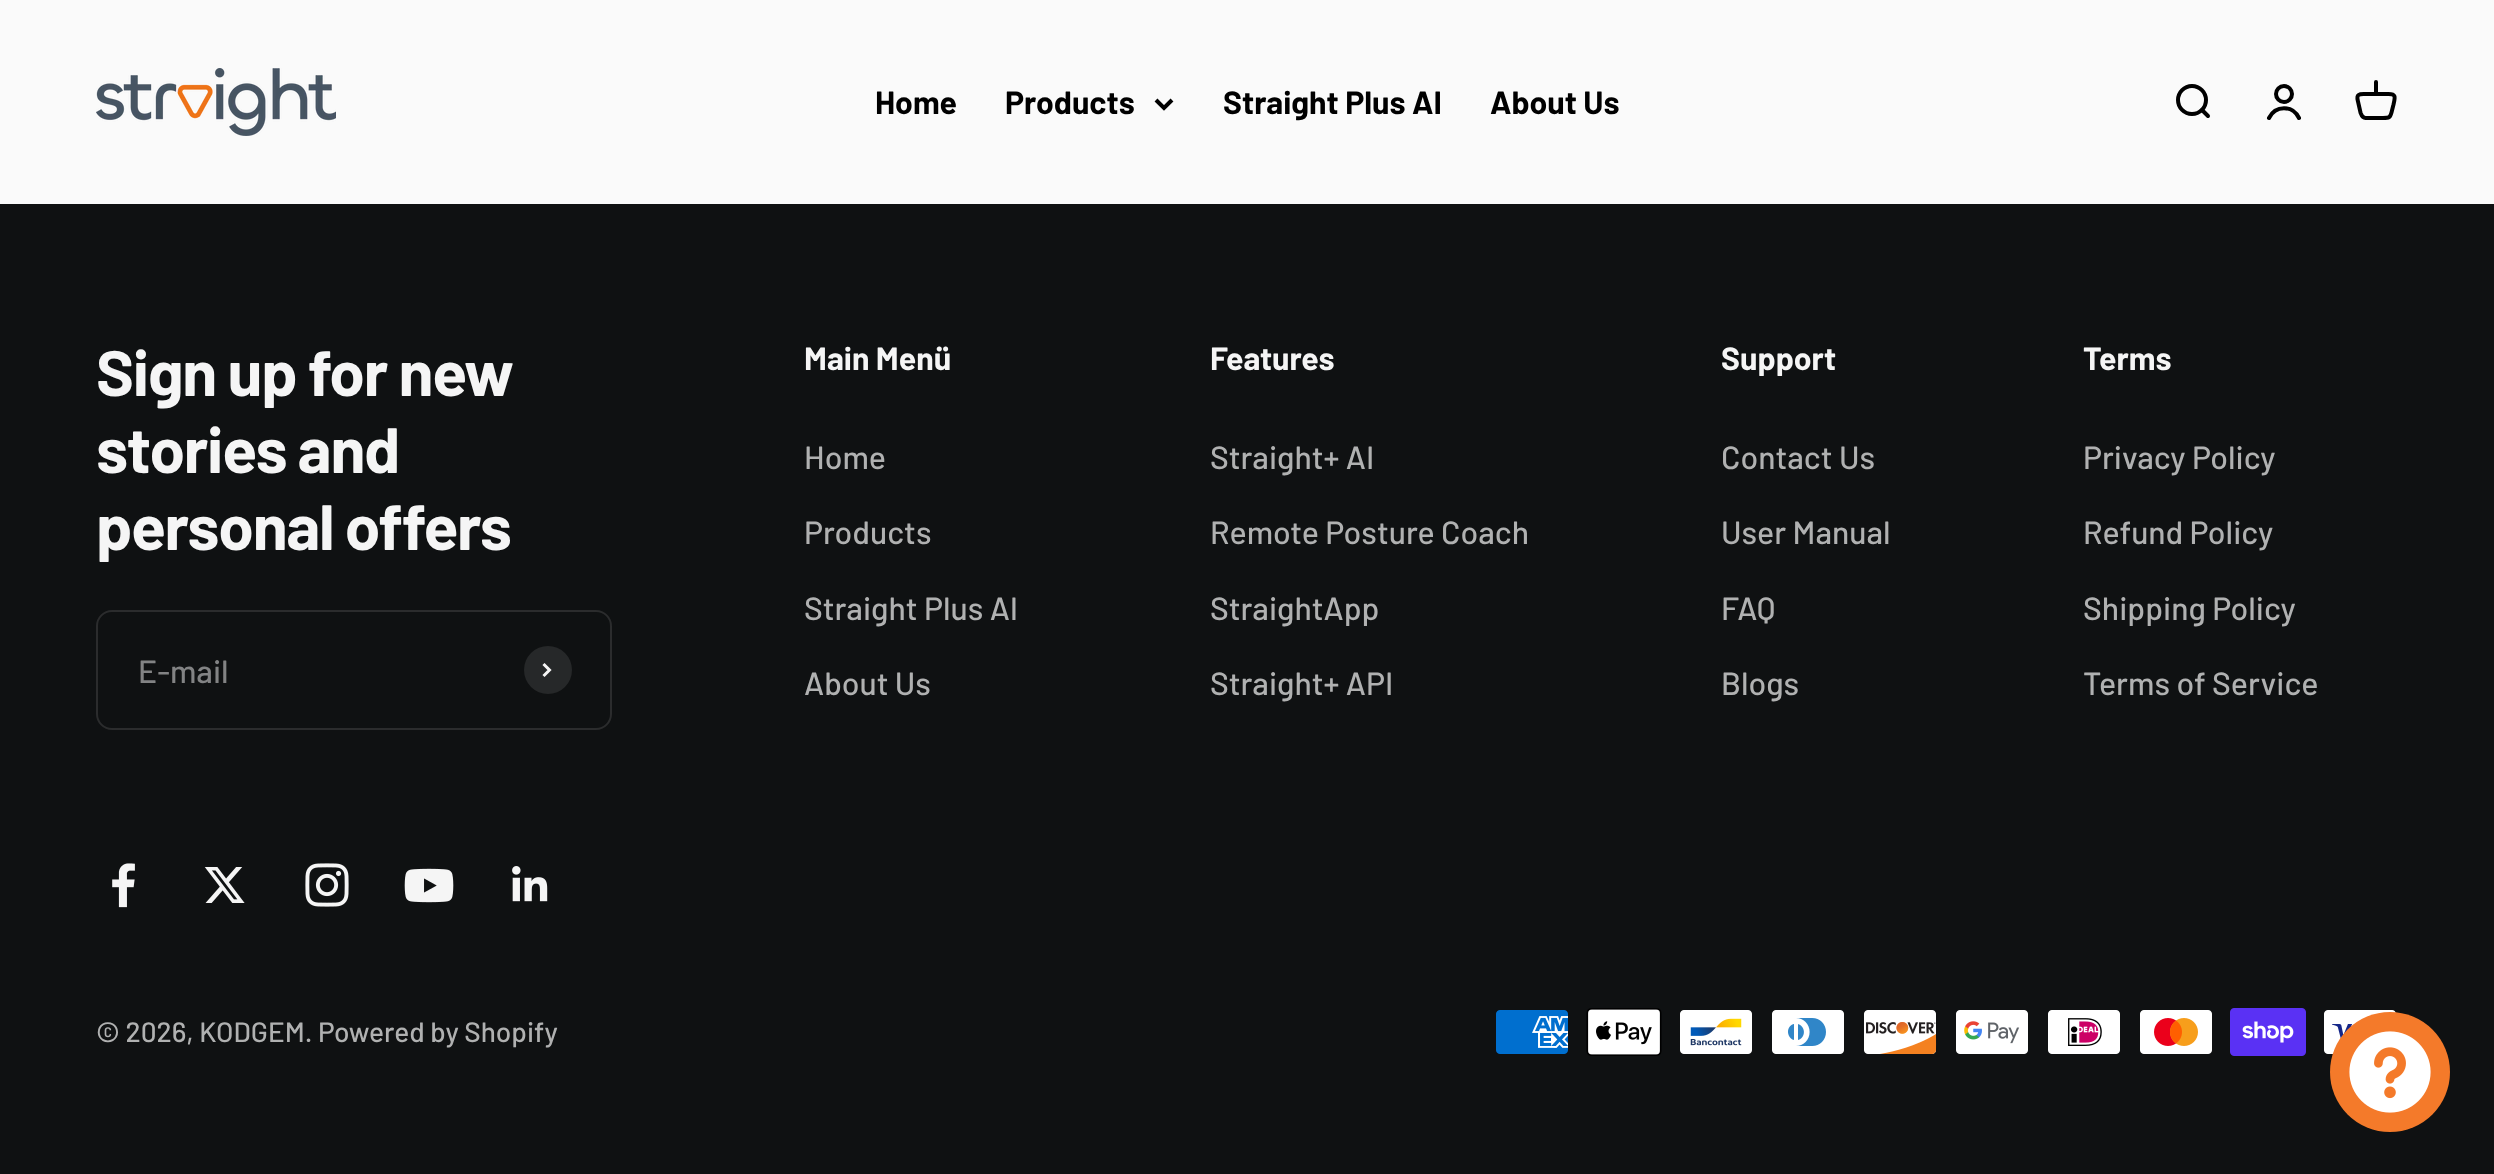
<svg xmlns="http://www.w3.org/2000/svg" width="2494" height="1174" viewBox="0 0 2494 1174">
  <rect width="100%" height="100%" fill="#fafafa"/>
  <image x="96" y="68" width="240" height="68" href="img/1.png"/>
  <path d="M1156 100L1164 108L1172 100" fill="none" stroke="#000" stroke-width="4"/>
  <circle cx="2192" cy="100" r="14" fill="none" stroke="#000" stroke-width="4"/>
  <path d="M2202 110L2208 116" fill="none" stroke="#000" stroke-width="4" stroke-linecap="round" stroke-linejoin="round"/>
  <circle cx="2284" cy="94" r="8" fill="none" stroke="#000" stroke-width="4"/>
  <path d="M2269 118C2275.5 105 2292.5 105 2299 118" fill="none" stroke="#000" stroke-width="4" stroke-linecap="round"/>
  <path d="M2376 94H2366C2364 94 2360.5 93.5 2358.5 95C2356.5 96.5 2357.5 99.5 2358 101.5L2360.5 112.5C2361.5 115 2362 118 2365.5 118H2383C2389 118 2390 118 2391.5 112.5L2393.5 104.5C2395 97.5 2396.5 94 2388.5 94ZM2376 94V82" fill="none" stroke="#000" stroke-width="4" stroke-linecap="round" stroke-linejoin="round"/>
  <path d="M0 204h2494v970H0z" fill="#0f1112"/>
  <rect x="97" y="611" width="514" height="118" rx="15" fill="none" stroke="#2b2c2d" stroke-width="2"/>
  <circle cx="548" cy="670" r="24" fill="#262829"/>
  <path d="M543.5 676L549.5 670L543.5 664" fill="none" stroke="#f5f5f5" stroke-width="3"/>
  <image x="112" y="863" width="23" height="45" href="img/2.png"/>
  <image x="204" y="867" width="41" height="36" href="img/3.png"/>
  <image x="305" y="863" width="44" height="44" href="img/4.png"/>
  <image x="404" y="868" width="50" height="35" href="img/5.png"/>
  <image x="512" y="866" width="36" height="36" href="img/6.png"/>
  <image x="1496" y="1010" width="72" height="44" href="img/7.png"/>
  <image x="1586" y="1008" width="76" height="48" href="img/8.png"/>
  <image x="1680" y="1010" width="72" height="44" href="img/9.png"/>
  <image x="1772" y="1010" width="72" height="44" href="img/10.png"/>
  <image x="1864" y="1010" width="73" height="44" href="img/11.png"/>
  <image x="1956" y="1010" width="72" height="44" href="img/12.png"/>
  <image x="2048" y="1010" width="72" height="44" href="img/13.png"/>
  <image x="2140" y="1010" width="72" height="44" href="img/14.png"/>
  <image x="2230" y="1008" width="76" height="48" href="img/15.png"/>
  <image x="2324" y="1010" width="72" height="44" href="img/16.png"/>
  <circle cx="2390" cy="1072" r="60" fill="#f47a2a"/>
  <image x="2349" y="1031" width="82" height="82" href="img/17.png"/>
  <g font-family="Barlow" font-size="32" font-weight="bold" fill="#000">
    <text x="875" y="114">Home</text>
    <text x="1005" y="114">Products</text>
    <text x="1223" y="114">Straight Plus AI</text>
    <text x="1490" y="114">About Us</text>
  </g>
  <g font-family="Barlow" font-size="64" font-weight="bold" letter-spacing="-1.25" fill="#f5f5f5">
    <text x="96" y="396">Sign up for new</text>
    <text x="96" y="473">stories and</text>
    <text x="96" y="550">personal offers</text>
  </g>
  <text x="138" y="683" font-family="Barlow" font-size="32" font-weight="500" fill="#828384">E-mail</text>
  <text x="804" y="370" font-family="Barlow" font-size="32" font-weight="bold" fill="#f5f5f5">Main Menü</text>
  <g font-family="Barlow" font-size="32" font-weight="500" fill="#b0b1b1">
    <text x="804" y="469">Home</text>
    <text x="804" y="544">Products</text>
    <text x="804" y="620">Straight Plus AI</text>
    <text x="804" y="695">About Us</text>
  </g>
  <text x="1210" y="370" font-family="Barlow" font-size="32" font-weight="bold" fill="#f5f5f5">Features</text>
  <g font-family="Barlow" font-size="32" font-weight="500" fill="#b0b1b1">
    <text x="1210" y="469">Straight+ AI</text>
    <text x="1210" y="544">Remote Posture Coach</text>
    <text x="1210" y="620">StraightApp</text>
    <text x="1210" y="695">Straight+ API</text>
  </g>
  <text x="1721" y="370" font-family="Barlow" font-size="32" font-weight="bold" fill="#f5f5f5">Support</text>
  <g font-family="Barlow" font-size="32" font-weight="500" fill="#b0b1b1">
    <text x="1721" y="469">Contact Us</text>
    <text x="1721" y="544">User Manual</text>
    <text x="1721" y="620">FAQ</text>
    <text x="1721" y="695">Blogs</text>
  </g>
  <text x="2083" y="370" font-family="Barlow" font-size="32" font-weight="bold" fill="#f5f5f5">Terms</text>
  <g font-family="Barlow" font-size="32" font-weight="500" fill="#b0b1b1">
    <text x="2083" y="469">Privacy Policy</text>
    <text x="2083" y="544">Refund Policy</text>
    <text x="2083" y="620">Shipping Policy</text>
    <text x="2083" y="695">Terms of Service</text>
  </g>
  <text x="96" y="1042" font-family="Barlow" font-size="28" font-weight="500" fill="#b0b1b1">© 2026, KODGEM. Powered by Shopify</text>
</svg>
